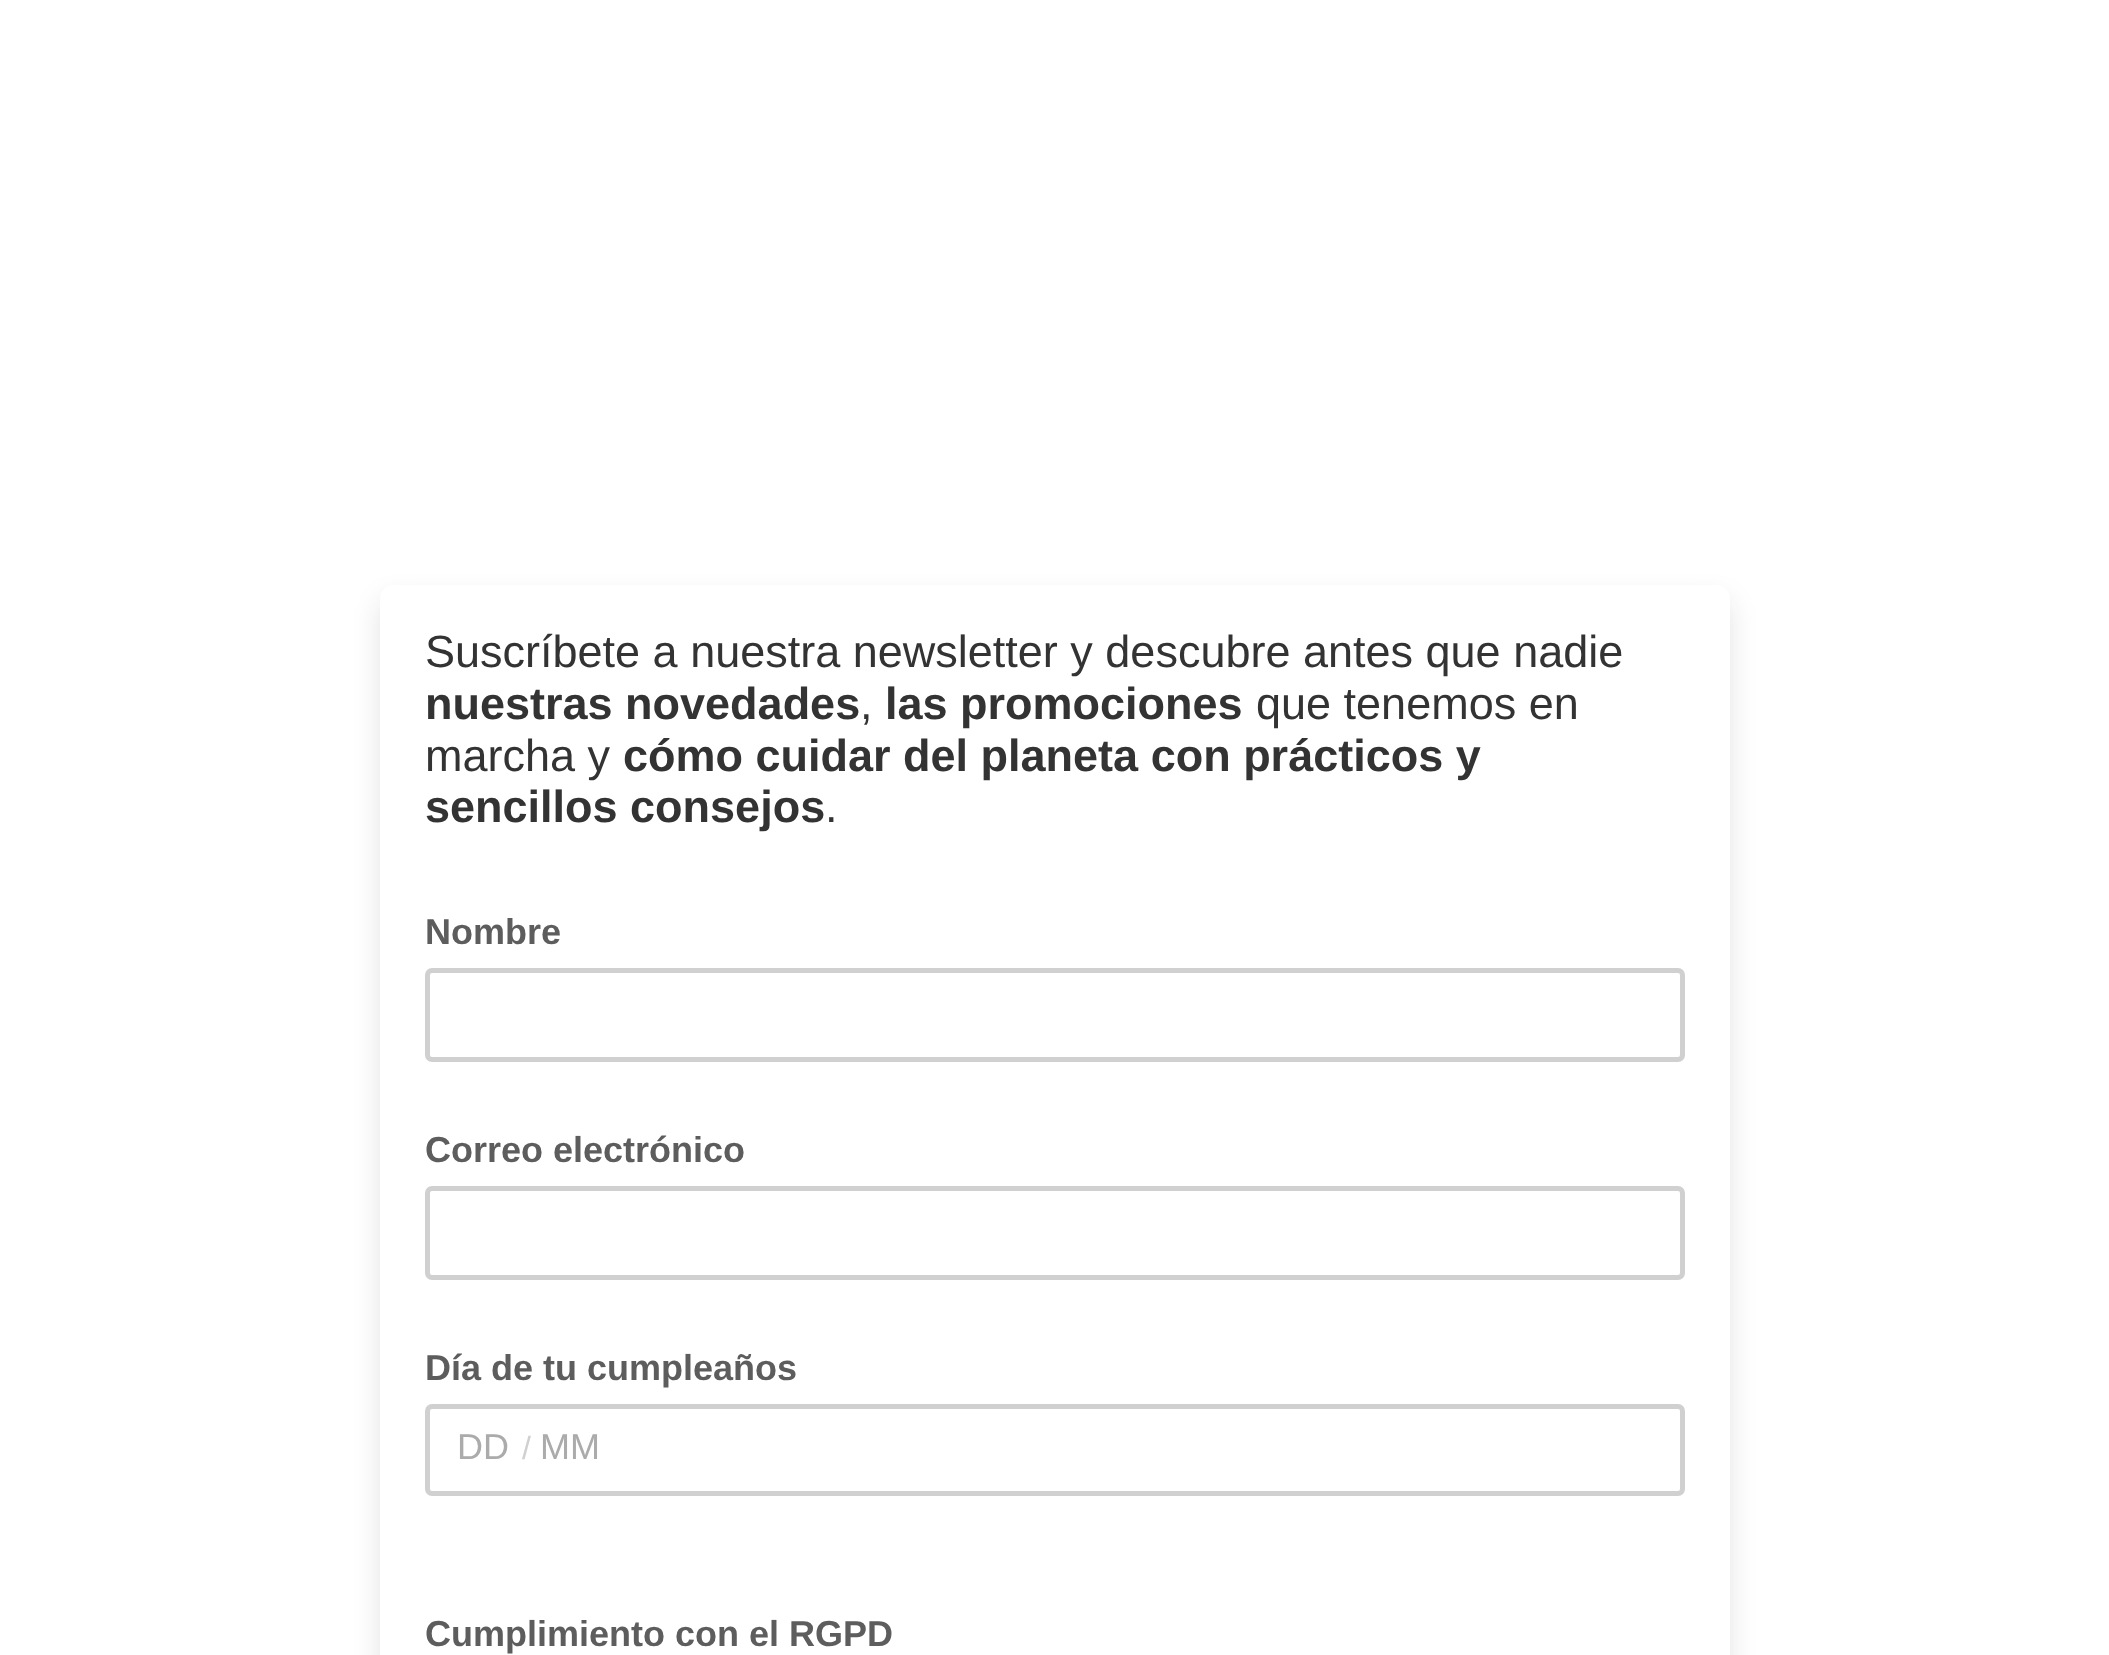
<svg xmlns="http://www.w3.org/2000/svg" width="2109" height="1655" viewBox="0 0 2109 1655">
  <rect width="100%" height="100%" fill="#fff"/>
  <rect x="380" y="599" width="1350" height="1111" rx="14" fill="#0d12161f" filter="blur(13.5px)"/>
  <rect x="380" y="585" width="1350" height="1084" rx="14" fill="#fff"/>
  <rect x="427.5" y="970.5" width="1255" height="89" rx="4.5" fill="none" stroke="#d0d0d0" stroke-width="5"/>
  <rect x="427.5" y="1188.5" width="1255" height="89" rx="4.5" fill="none" stroke="#d0d0d0" stroke-width="5"/>
  <rect x="427.5" y="1406.5" width="1255" height="87" rx="4.5" fill="none" stroke="#d0d0d0" stroke-width="5"/>
  <text x="425" y="667" font-family="Liberation Sans" font-size="45" fill="#333">Suscríbete a nuestra newsletter y descubre antes que nadie</text>
  <text x="425" y="719" font-family="Liberation Sans" font-size="45" font-weight="bold" fill="#333">nuestras novedades</text>
  <text x="860" y="719" font-family="Liberation Sans" font-size="45" fill="#333">,</text>
  <text x="885" y="719" font-family="Liberation Sans" font-size="45" font-weight="bold" fill="#333">las promociones</text>
  <g font-family="Liberation Sans" font-size="45" fill="#333">
    <text x="1256" y="719">que tenemos en</text>
    <text x="425" y="771">marcha y</text>
  </g>
  <g font-family="Liberation Sans" font-size="45" font-weight="bold" fill="#333">
    <text x="623" y="771">cómo cuidar del planeta con prácticos y</text>
    <text x="425" y="822">sencillos consejos</text>
  </g>
  <text x="825" y="822" font-family="Liberation Sans" font-size="45" fill="#333">.</text>
  <g font-family="Liberation Sans" font-size="36" font-weight="bold" fill="#5d5d5d">
    <text x="425" y="944">Nombre</text>
    <text x="425" y="1162">Correo electrónico</text>
    <text x="425" y="1380">Día de tu cumpleaños</text>
  </g>
  <text x="457" y="1459" font-family="Liberation Sans" font-size="36" fill="#ababab">DD</text>
  <text x="522" y="1459" font-family="Liberation Sans" font-size="32" fill="#d0d0d0">/</text>
  <text x="540" y="1459" font-family="Liberation Sans" font-size="36" fill="#ababab">MM</text>
  <text x="425" y="1646" font-family="Liberation Sans" font-size="36" font-weight="bold" fill="#5d5d5d">Cumplimiento con el RGPD</text>
</svg>
